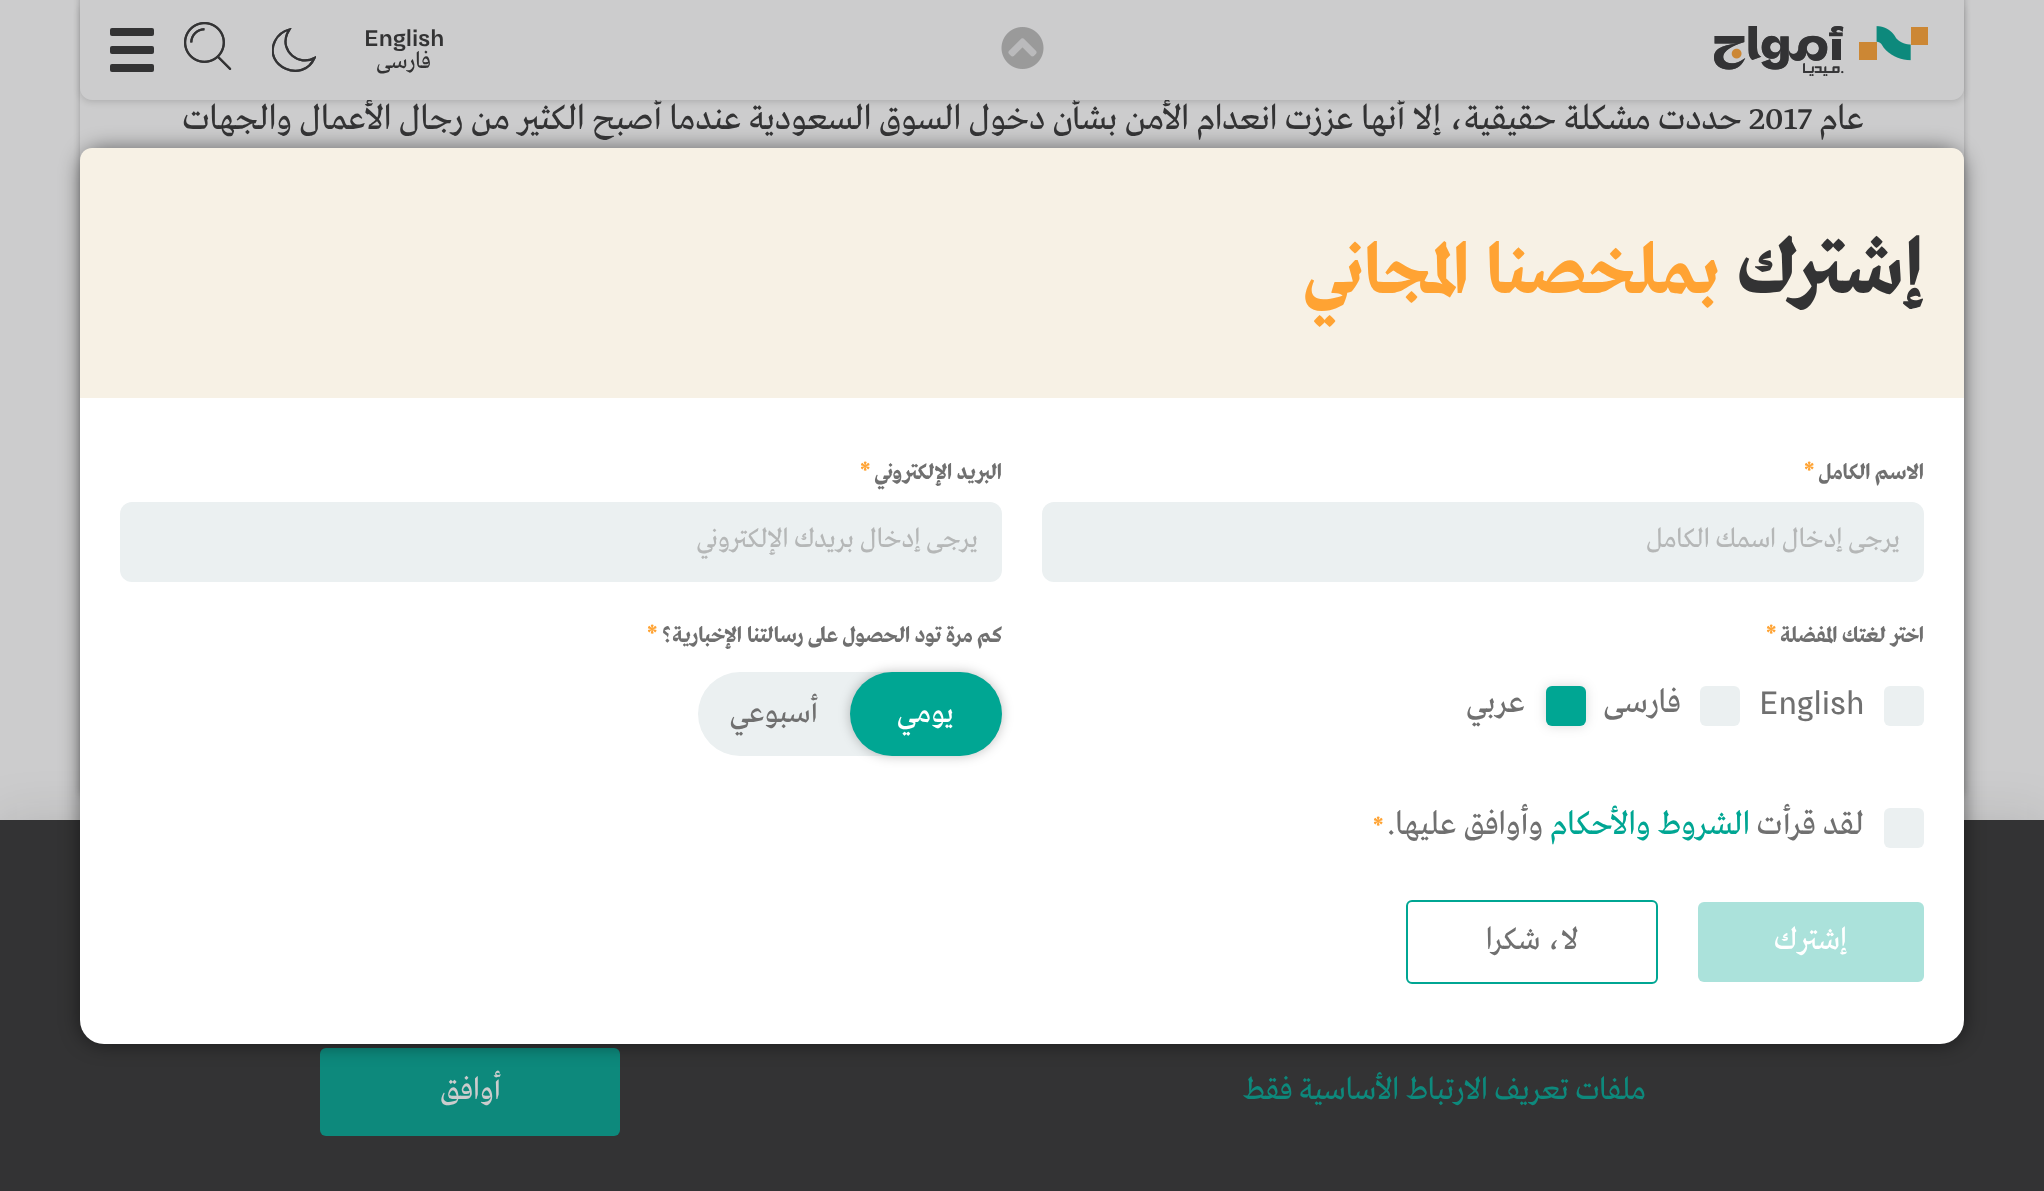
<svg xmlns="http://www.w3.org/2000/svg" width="2044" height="1191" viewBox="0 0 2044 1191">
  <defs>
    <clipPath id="clip1"><path d="M272 28h44v44H272z"/></clipPath>
  </defs>
  <rect width="100%" height="100%" fill="#cccccd"/>
  <rect x="80" y="-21" width="1884" height="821" rx="12" fill="#0d0d0d40" filter="blur(3px)"/>
  <path d="M80 88h1884v72H80z" fill="#cccccd"/>
  <rect x="80" y="2" width="1884" height="100" rx="12" fill="#0d0d0d26" filter="blur(3px)"/>
  <path d="M0 820h2044v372H0z" fill="#0d0d0d1f" filter="blur(25px)"/>
  <path d="M0 820h2044v371H0z" fill="#333334"/>
  <rect x="320" y="1048" width="300" height="88" rx="6" fill="#0d897c"/>
  <rect x="80" y="148" width="1884" height="896" rx="24" fill="#00000080" filter="blur(10px)"/>
  <rect x="80" y="148" width="1884" height="896" rx="24" fill="#fff"/>
  <path d="M92 148H1952C1958.5 148 1964 153.5 1964 160V398H80V160C80 153.5 85.5 148 92 148Z" fill="#f7f1e5"/>
  <rect x="1042" y="502" width="882" height="80" rx="12" fill="#ebf0f1"/>
  <rect x="120" y="502" width="882" height="80" rx="12" fill="#ebf0f1"/>
  <rect x="1884" y="686" width="40" height="40" rx="6" fill="#ebf0f1"/>
  <rect x="1700" y="686" width="40" height="40" rx="6" fill="#ebf0f1"/>
  <rect x="1546" y="686" width="40" height="40" rx="6" fill="#00000026" filter="blur(6px)"/>
  <rect x="1546" y="686" width="40" height="40" rx="6" fill="#00a693"/>
  <rect x="698" y="672" width="304" height="84" rx="42" fill="#ebf0f1"/>
  <rect x="850" y="672" width="152" height="84" rx="42" fill="#00000040" filter="blur(6px)"/>
  <rect x="850" y="672" width="152" height="84" rx="42" fill="#00a693"/>
  <rect x="1884" y="808" width="40" height="40" rx="6" fill="#ebf0f1"/>
  <rect x="1698" y="902" width="226" height="80" rx="6" fill="#abe2db"/>
  <rect x="1407" y="901" width="250" height="82" rx="5" fill="none" stroke="#00a693" stroke-width="2"/>
  <text x="1864" y="129" font-family="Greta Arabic" font-size="36" direction="rtl" fill="#333334">عام</text>
  <text x="1749" y="129" font-family="Greta Arabic" font-size="36" fill="#333334">2017</text>
  <text x="1742" y="129" font-family="Greta Arabic" font-size="36" direction="rtl" fill="#333334">حددت مشكلة حقيقية، إلا أنها عززت انعدام الأمن بشأن دخول السوق السعودية عندما أصبح الكثير من رجال الأعمال والجهات</text>
  <path d="M80 0H1964V88C1964 94.5 1958.5 100 1952 100H92C85.5 100 80 94.5 80 88Z" fill="#cccccd"/>
  <rect x="110" y="64" width="44" height="8" rx="2" fill="#333334"/>
  <rect x="110" y="28" width="44" height="8" rx="2" fill="#333334"/>
  <rect x="110" y="46" width="44" height="8" rx="2" fill="#333334"/>
  <image x="184" y="22" width="48" height="48" href="img/3.png"/>
  <g clip-path="url(#clip1)">
    <path d="M289.5 29.5L287 34C280 51.5 299 66.5 314.5 58C303 84 262.5 66.5 275 41C278 35 283.5 31 289.5 29.5Z" fill="none" stroke="#4d4d4d" stroke-width="2.2"/>
    <path d="M289.5 29.5L287 34C280 51.5 299 66.5 314.5 58C303 84 262.5 66.5 275 41C278 35 283.5 31 289.5 29.5Z" fill="none" stroke="#333335" stroke-width="2.2"/>
  </g>
  <image x="1001" y="27" width="43" height="42" href="img/2.png"/>
  <image x="1714" y="26" width="214" height="50" href="img/1.png"/>
  <text x="431" y="68" font-family="Greta Arabic" font-size="24" direction="rtl" fill="#333334">فارسی</text>
  <text x="364" y="46" font-family="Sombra" font-size="24" font-weight="500" fill="#333334">English</text>
  <text x="1924" y="293" font-family="Greta Arabic" font-size="80" font-weight="bold" direction="rtl" fill="#333334">إشترك</text>
  <text x="1720" y="293" font-family="Greta Arabic" font-size="72" font-weight="bold" direction="rtl" fill="#ffa333">بملخصنا المجاني</text>
  <text x="1924" y="479" font-family="'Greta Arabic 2'" font-size="22" font-weight="bold" direction="rtl" fill="#707070">الاسم الكامل</text>
  <text x="1804" y="479" font-family="'Greta Arabic 2'" font-size="28" font-weight="bold" fill="#ffa333">*</text>
  <text x="1900" y="547" font-family="Greta Arabic" font-size="28" direction="rtl" fill="#b5b7b7">يرجى إدخال اسمك الكامل</text>
  <text x="1002" y="479" font-family="'Greta Arabic 2'" font-size="22" font-weight="bold" direction="rtl" fill="#707070">البريد الإلكتروني</text>
  <text x="860" y="479" font-family="'Greta Arabic 2'" font-size="28" font-weight="bold" fill="#ffa333">*</text>
  <text x="978" y="547" font-family="Greta Arabic" font-size="28" direction="rtl" fill="#b5b7b7">يرجى إدخال بريدك الإلكتروني</text>
  <text x="1924" y="642" font-family="'Greta Arabic 2'" font-size="22" font-weight="bold" direction="rtl" fill="#707070">اختر لغتك المفضلة</text>
  <text x="1766" y="642" font-family="'Greta Arabic 2'" font-size="28" font-weight="bold" fill="#ffa333">*</text>
  <text x="1759" y="714" font-family="Sombra" font-size="34" fill="#707070">English</text>
  <g font-family="Greta Arabic" font-size="34" direction="rtl" fill="#707070">
    <text x="1681" y="712">فارسی</text>
    <text x="1525" y="712">عربي</text>
  </g>
  <text x="1002" y="642" font-family="'Greta Arabic 2'" font-size="22" font-weight="bold" direction="rtl" fill="#707070">كم مرة تود الحصول على رسالتنا الإخبارية؟</text>
  <text x="647" y="642" font-family="'Greta Arabic 2'" font-size="28" font-weight="bold" fill="#ffa333">*</text>
  <text x="954" y="722" font-family="Greta Arabic" font-size="32" direction="rtl" fill="#fff">يومي</text>
  <text x="818" y="722" font-family="Greta Arabic" font-size="32" direction="rtl" fill="#707070">أسبوعي</text>
  <text x="1864" y="834" font-family="Greta Arabic" font-size="34" direction="rtl" fill="#707070">لقد قرأت</text>
  <text x="1750" y="834" font-family="Greta Arabic" font-size="34" direction="rtl" fill="#00a693">الشروط والأحكام</text>
  <text x="1543" y="834" font-family="Greta Arabic" font-size="34" direction="rtl" fill="#707070">وأوافق عليها.</text>
  <text x="1373" y="834" font-family="'Greta Arabic 2'" font-size="28" font-weight="bold" fill="#ffa333">*</text>
  <text x="1847" y="949" font-family="Greta Arabic" font-size="32" direction="rtl" fill="#fff">إشترك</text>
  <text x="1579" y="949" font-family="Greta Arabic" font-size="32" direction="rtl" fill="#707070">لا، شكرا</text>
  <text x="1646" y="1099" font-family="Greta Arabic" font-size="32" direction="rtl" fill="#0d897c">ملفات تعريف الارتباط الأساسية فقط</text>
  <text x="501" y="1099" font-family="Greta Arabic" font-size="32" direction="rtl" fill="#cccccd">أوافق</text>
</svg>
